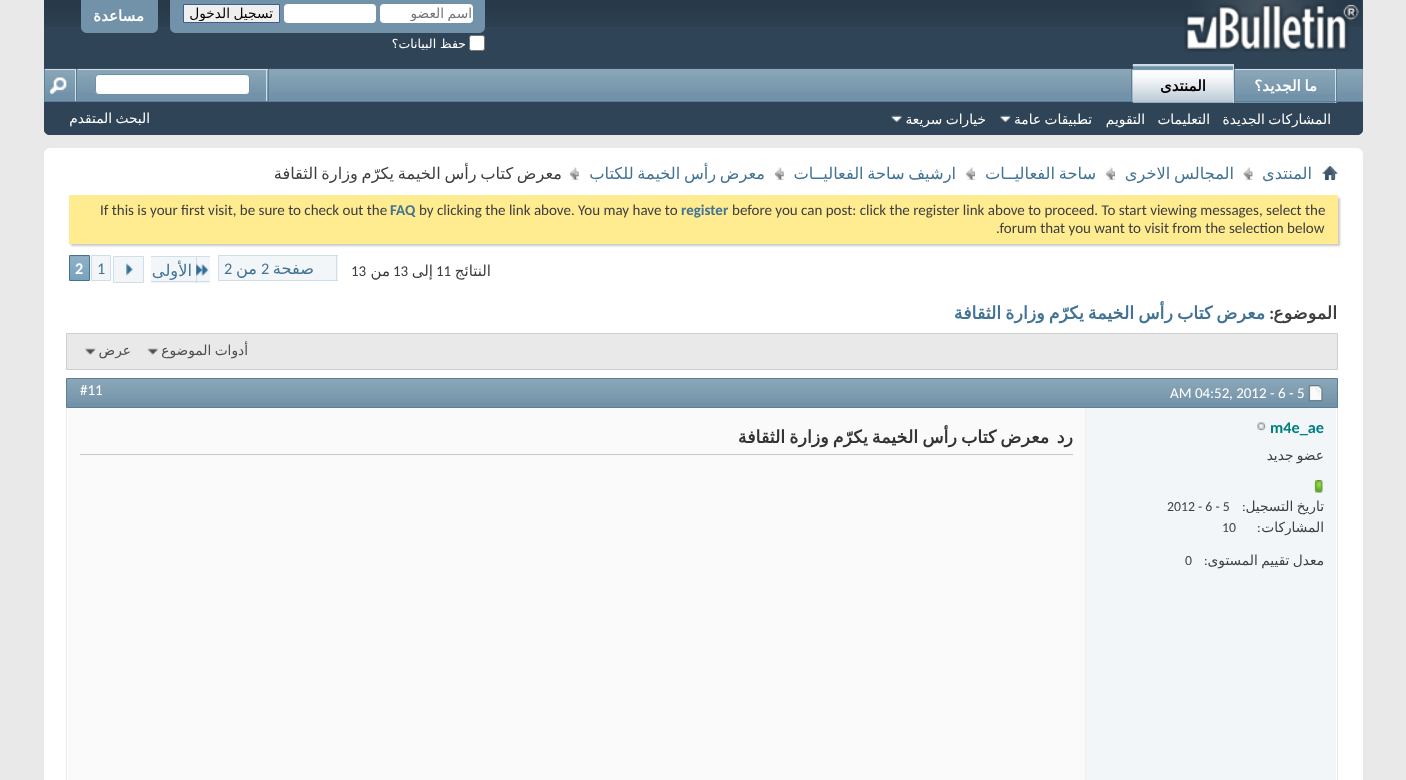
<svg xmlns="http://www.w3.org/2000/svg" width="1406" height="780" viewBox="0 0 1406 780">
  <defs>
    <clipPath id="clip1"><path d="M381 5h90v16H381z"/></clipPath>
    <clipPath id="clip2"><path d="M184 5h95v16H184z"/></clipPath>
  </defs>
  <rect width="100%" height="100%" fill="#e9e9e9"/>
  <path d="M44 0H1363V129C1363 132.5 1360.5 135 1357 135H50C46.5 135 44 132.5 44 129Z" fill="#2f4456"/>
  <image x="44" y="0" width="1318" height="27" href="img/1.png"/>
  <image x="1184" y="0" width="175" height="52" href="img/2.png"/>
  <path d="M170 0H485V27C485 30.5 482.5 33 479 33H176C172.5 33 170 30.5 170 27Z" fill="#7192a8"/>
  <rect x="380" y="4" width="93" height="19" rx="4" fill="#fff"/>
  <rect x="284" y="4" width="92" height="19" rx="4" fill="#fff"/>
  <path d="M183.5 4.5h96v18H183.5z" fill="#efefef" stroke="#415d8d"/>
  <rect x="469.5" y="35.5" width="15" height="15" rx="2" fill="#fff" stroke="#767676"/>
  <path d="M81 0H158V27C158 30.5 155.5 33 152 33H87C83.5 33 81 30.5 81 27Z" fill="#7192a8"/>
  <path d="M44 69H1363V129C1363 132.5 1360.5 135 1357 135H50C46.5 135 44 132.5 44 129Z" fill="#2f4456"/>
  <path d="M45 69h1318v32H45z" fill="#7192a8"/>
  <image x="44" y="68" width="1319" height="25" href="img/3.png"/>
  <path d="M1336 69h1v34H1336z" fill="#5a7f97"/>
  <path d="M1234 69h1v34H1234z" fill="#5a7f97"/>
  <path d="M1235 70h100v33H1235z" fill="#7192a8"/>
  <image x="1235" y="70" width="102" height="24" href="img/4.png"/>
  <path d="M1235 69h101v1H1235z" fill="#cedfeb"/>
  <path d="M1335 69h1v34H1335z" fill="#cedfeb"/>
  <path d="M1131 69h1v32H1131z" fill="#5a7f97"/>
  <path d="M44 101h1319v1H44z" fill="#5a7f97"/>
  <path d="M1133 65h100v38H1133z" fill="#7192a8"/>
  <image x="1132" y="65" width="101" height="38" href="img/5.png"/>
  <path d="M1133 64h101v1H1133z" fill="#cedfeb"/>
  <path d="M1233 64h1v39H1233z" fill="#cedfeb"/>
  <image x="1000" y="115" width="11" height="7" href="img/6.png"/>
  <image x="891" y="115" width="12" height="7" href="img/7.png"/>
  <path d="M268 69h1v32H268z" fill="#5a7f97"/>
  <path d="M78 69h190v1H78z" fill="#cedfeb"/>
  <path d="M266 69h1v32H266z" fill="#cedfeb"/>
  <rect x="95.5" y="74.5" width="154" height="20" rx="3.5" fill="#fff" stroke="#6b91ab"/>
  <path d="M76 69h1v32H76z" fill="#5a7f97"/>
  <path d="M44 69h1v32H44z" fill="#5a7f97"/>
  <path d="M45 69h31v1H45z" fill="#cedfeb"/>
  <path d="M75 69h1v32H75z" fill="#cedfeb"/>
  <image x="49" y="77" width="18" height="18" href="img/8.png"/>
  <rect x="44" y="148" width="1319" height="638" rx="6" fill="#fff"/>
  <image x="1322" y="166" width="16" height="14" href="img/9.png"/>
  <image x="1243" y="167" width="10" height="13" href="img/10.png"/>
  <image x="1106" y="167" width="9" height="13" href="img/11.png"/>
  <image x="966" y="167" width="9" height="13" href="img/11.png"/>
  <image x="775" y="167" width="9" height="13" href="img/12.png"/>
  <image x="570" y="167" width="9" height="13" href="img/12.png"/>
  <path d="M71 198h1269v48H71z" fill="#c8c8c8" filter="blur(1px)"/>
  <path d="M69 195h1269v49H69z" fill="#ffeb90"/>
  <path d="M261 255h8v26H261z" fill="#f2f6f8"/>
  <path d="M261 255h77v1H261z" fill="#cedfeb"/>
  <path d="M269 256h69v24H269z" fill="#f2f6f8"/>
  <path d="M336 255h1v26H336z" fill="#cedfeb"/>
  <path d="M269 280h69v1H269z" fill="#cedfeb"/>
  <path d="M218 280h43v1H218z" fill="#cedfeb"/>
  <path d="M261 280h8v1H261z" fill="#cedfeb"/>
  <path d="M219 256h42v24H219z" fill="#f2f6f8"/>
  <path d="M218 255h43v1H218z" fill="#cedfeb"/>
  <path d="M218 255h1v26H218z" fill="#cedfeb"/>
  <path d="M151 257h59v26H151z" fill="#f2f6f8"/>
  <path d="M151 256h59v1H151z" fill="#cedfeb"/>
  <path d="M196 256h1v27H196z" fill="#cedfeb"/>
  <image x="196" y="263" width="13" height="14" href="img/13.png"/>
  <path d="M198 281h12v1H198z" fill="#cedfeb"/>
  <path d="M151 281h47v1H151z" fill="#cedfeb"/>
  <path d="M113.5 256.5h30v26H113.5z" fill="#f2f6f8" stroke="#cedfeb"/>
  <image x="126" y="263" width="7" height="13" href="img/14.png"/>
  <path d="M91.5 255.5h19v25H91.5z" fill="#f2f6f8" stroke="#cedfeb"/>
  <path d="M70 256h19v24H70z" fill="#759fbb"/>
  <image x="70" y="256" width="19" height="24" href="img/15.png"/>
  <path d="M69.5 255.5h20v25H69.5z" fill="none" stroke="#417394"/>
  <path d="M66.5 333.5h1271v36H66.5z" fill="#e9e9e9" stroke="#cecece"/>
  <image x="147" y="348" width="12" height="8" href="img/16.png"/>
  <image x="85" y="348" width="11" height="8" href="img/17.png"/>
  <path d="M66.5 378.5h1271v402H66.5z" fill="none" stroke="#e9e9e9"/>
  <path d="M67 379h1270v28H67z" fill="#7192a8"/>
  <image x="67" y="379" width="1270" height="24" href="img/18.png"/>
  <path d="M66.5 378.5h1271v29H66.5z" fill="none" stroke="#5a7f97"/>
  <image x="1308" y="385" width="15" height="17" href="img/19.png"/>
  <path d="M1086 408h250v372H1086z" fill="#f2f6f8"/>
  <image x="1257" y="422" width="9" height="9" href="img/20.png"/>
  <image x="1314" y="480" width="9" height="13" href="img/21.png"/>
  <path d="M68 408h1017v372H68z" fill="#fafafa"/>
  <path d="M1085 408h1v372H1085z" fill="#efefef"/>
  <path d="M80 454h993v1H80z" fill="#c8c8c8"/>
  <g clip-path="url(#clip1)">
    <text x="472" y="18" word-spacing="-1" font-family="DejaVu Sans" font-size="13.75" direction="rtl" fill="#777">اسم العضو</text>
  </g>
  <g clip-path="url(#clip2)">
    <text x="273" y="18" word-spacing="-1" font-family="DejaVu Sans" font-size="13.75" direction="rtl" fill="#000">تسجيل الدخول</text>
  </g>
  <text x="466" y="48" font-family="DejaVu Sans" font-size="12.5" direction="rtl" fill="#fff">حفظ البيانات؟</text>
  <g font-family="DejaVu Sans" font-size="15" font-weight="bold" direction="rtl" fill="#fff">
    <text x="144" y="21">مساعدة</text>
    <text x="1317" y="91" word-spacing="-1">ما الجديد؟</text>
  </g>
  <text x="1206" y="91" font-family="DejaVu Sans" font-size="15" font-weight="bold" direction="rtl" fill="#000">المنتدى</text>
  <g font-family="DejaVu Sans" font-size="13.75" direction="rtl" fill="#fff">
    <text x="1331" y="124" word-spacing="-1">المشاركات الجديدة</text>
    <text x="1210" y="124">التعليمات</text>
    <text x="1145" y="124">التقويم</text>
    <text x="1092" y="124" word-spacing="-1">تطبيقات عامة</text>
    <text x="986" y="124" word-spacing="-1">خيارات سريعة</text>
    <text x="150" y="123" word-spacing="-1">البحث المتقدم</text>
  </g>
  <g font-family="DejaVu Sans" font-size="16.25" direction="rtl" fill="#417394">
    <text x="1312" y="179">المنتدى</text>
    <text x="1234" y="179" word-spacing="-1.5">المجالس الاخرى</text>
    <text x="1096" y="179" word-spacing="-1.5">ساحة الفعاليــات</text>
    <text x="956" y="179" word-spacing="-1.5">ارشيف ساحة الفعاليــات</text>
    <text x="765" y="179" word-spacing="-1.5">معرض رأس الخيمة للكتاب</text>
  </g>
  <text x="562" y="179" word-spacing="-1.5" font-family="DejaVu Sans" font-size="16.25" direction="rtl" fill="#3e3e3e">معرض كتاب رأس الخيمة يكرّم وزارة الثقافة</text>
  <text x="732" y="215" font-family="Carlito" font-size="15" fill="#3e3e3e">before you can post: click the register link above to proceed. To start viewing messages, select the</text>
  <text x="681" y="215" font-family="Carlito" font-size="15" font-weight="bold" fill="#417394">register</text>
  <text x="419" y="215" font-family="Carlito" font-size="15" fill="#3e3e3e">by clicking the link above. You may have to</text>
  <text x="390" y="215" font-family="Carlito" font-size="15" font-weight="bold" fill="#417394">FAQ</text>
  <g font-family="Carlito" font-size="15" fill="#3e3e3e">
    <text x="100" y="215">If this is your first visit, be sure to check out the</text>
    <text x="996" y="233">.forum that you want to visit from the selection below</text>
  </g>
  <text x="491" y="276" font-family="DejaVu Sans" font-size="15" direction="rtl" fill="#3e3e3e">النتائج</text>
  <text x="436" y="276" font-family="Carlito" font-size="15" fill="#3e3e3e">11</text>
  <text x="433" y="276" font-family="DejaVu Sans" font-size="15" direction="rtl" fill="#3e3e3e">إلى</text>
  <text x="393" y="276" font-family="Carlito" font-size="15" fill="#3e3e3e">13</text>
  <text x="390" y="276" font-family="DejaVu Sans" font-size="15" direction="rtl" fill="#3e3e3e">من</text>
  <text x="351" y="276" font-family="Carlito" font-size="15" fill="#3e3e3e">13</text>
  <text x="314" y="274" font-family="DejaVu Sans" font-size="16.25" direction="rtl" fill="#417394">صفحة</text>
  <text x="261" y="274" font-family="Carlito" font-size="16.25" fill="#417394">2</text>
  <text x="257" y="274" font-family="DejaVu Sans" font-size="16.25" direction="rtl" fill="#417394">من</text>
  <text x="224" y="274" font-family="Carlito" font-size="16.25" fill="#417394">2</text>
  <text x="192" y="276" font-family="DejaVu Sans" font-size="16.25" direction="rtl" fill="#417394">الأولى</text>
  <text x="97" y="274" font-family="Carlito" font-size="16.25" fill="#417394">1</text>
  <text x="75" y="274" font-family="Carlito" font-size="16.25" font-weight="bold" fill="#fff">2</text>
  <text x="1337" y="319" font-family="DejaVu Sans" font-size="17.5" font-weight="bold" direction="rtl" fill="#3e3e3e">الموضوع</text>
  <text x="1274" y="319" font-family="Carlito" font-size="17.5" font-weight="bold" direction="rtl" fill="#3e3e3e">:</text>
  <text x="1265" y="319" word-spacing="-1.5" font-family="DejaVu Sans" font-size="17.5" font-weight="bold" direction="rtl" fill="#417394">معرض كتاب رأس الخيمة يكرّم وزارة الثقافة</text>
  <g font-family="DejaVu Sans" font-size="13.75" direction="rtl" fill="#4e4e4e">
    <text x="248" y="355" word-spacing="-1">أدوات الموضوع</text>
    <text x="131" y="355">عرض</text>
  </g>
  <g font-family="Carlito" font-size="15" fill="#fff">
    <text x="1229" y="398">, 2012 - 6 - 5</text>
    <text x="1170" y="398">AM 04:52</text>
    <text x="80" y="395">#11</text>
  </g>
  <text x="1270" y="433" font-family="Carlito" font-size="16.25" font-weight="bold" fill="#008080">m4e_ae</text>
  <g font-family="DejaVu Sans" font-size="13.75" direction="rtl" fill="#3e3e3e">
    <text x="1324" y="460" word-spacing="-1">عضو جديد</text>
    <text x="1324" y="511" word-spacing="-1">تاريخ التسجيل</text>
  </g>
  <g font-family="Carlito" font-size="13.75" fill="#3e3e3e">
    <text x="1242" y="511">:</text>
    <text x="1167" y="511">2012 - 6 - 5</text>
  </g>
  <text x="1324" y="532" font-family="DejaVu Sans" font-size="13.75" direction="rtl" fill="#3e3e3e">المشاركات</text>
  <g font-family="Carlito" font-size="13.75" fill="#3e3e3e">
    <text x="1257" y="532">:</text>
    <text x="1222" y="532">10</text>
  </g>
  <text x="1324" y="565" word-spacing="-1" font-family="DejaVu Sans" font-size="13.75" direction="rtl" fill="#3e3e3e">معدل تقييم المستوى</text>
  <g font-family="Carlito" font-size="13.75" fill="#3e3e3e">
    <text x="1204" y="565">:</text>
    <text x="1185" y="565">0</text>
  </g>
  <g font-family="DejaVu Sans" font-size="17.5" font-weight="bold" direction="rtl" fill="#333">
    <text x="1073" y="443">رد</text>
    <text x="1049" y="443" word-spacing="-1.5">معرض كتاب رأس الخيمة يكرّم وزارة الثقافة</text>
  </g>
</svg>
